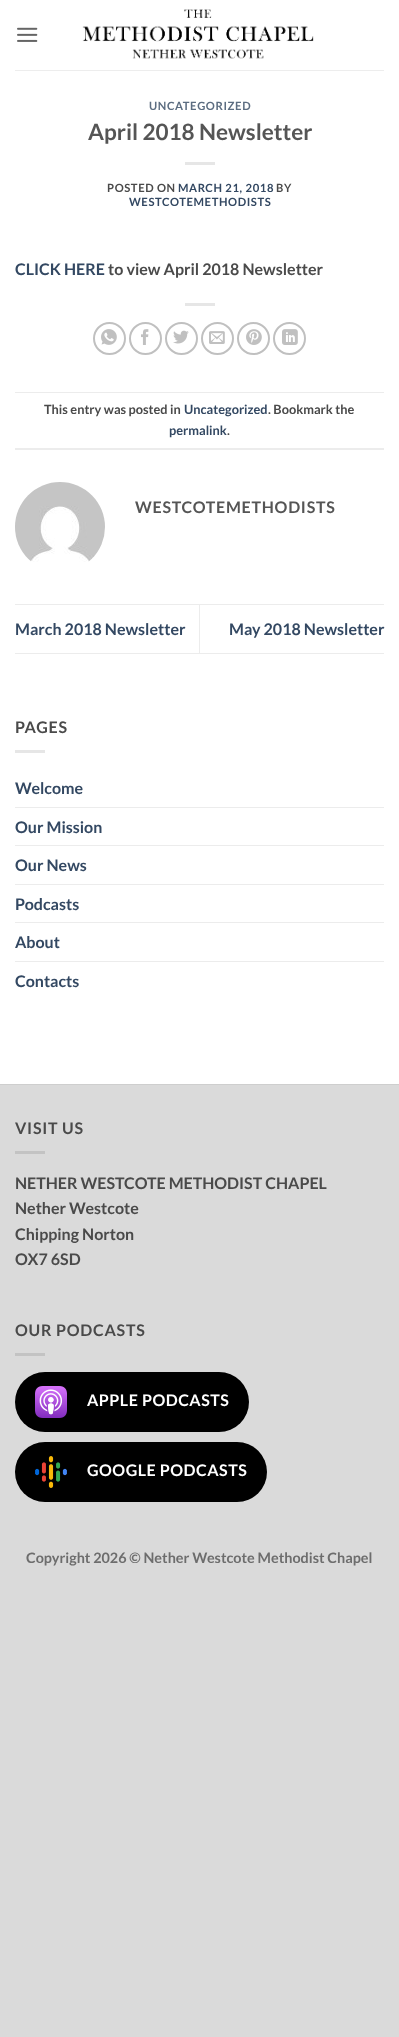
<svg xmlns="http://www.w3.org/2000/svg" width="399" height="2037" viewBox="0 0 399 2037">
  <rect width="100%" height="100%" fill="#dadada"/>
  <path d="M0 0h399v1084H0z" fill="#fff"/>
  <image x="17" y="27" width="21" height="15" href="img/1.png"/>
  <image x="82" y="9" width="232" height="50" href="img/2.png"/>
  <path d="M15 70h369v1H15z" fill="#ededed"/>
  <path d="M185 162h30v3H185z" fill="#e6e6e6"/>
  <path d="M185 303h30v3H185z" fill="#e6e6e6"/>
  <circle cx="109.5" cy="338.5" r="15.5" fill="none" stroke="#c0c0c0" stroke-width="2"/>
  <image x="101" y="329" width="16" height="16" href="img/3.png"/>
  <circle cx="145.5" cy="338.5" r="15.5" fill="none" stroke="#c0c0c0" stroke-width="2"/>
  <image x="141" y="329" width="8" height="16" href="img/4.png"/>
  <circle cx="181.5" cy="338.5" r="15.5" fill="none" stroke="#c0c0c0" stroke-width="2"/>
  <image x="173" y="330" width="16" height="14" href="img/5.png"/>
  <circle cx="217.5" cy="338.5" r="15.5" fill="none" stroke="#c0c0c0" stroke-width="2"/>
  <image x="209" y="331" width="16" height="13" href="img/6.png"/>
  <circle cx="253.5" cy="338.5" r="15.5" fill="none" stroke="#c0c0c0" stroke-width="2"/>
  <image x="246" y="329" width="16" height="16" href="img/7.png"/>
  <circle cx="289.5" cy="338.5" r="15.5" fill="none" stroke="#c0c0c0" stroke-width="2"/>
  <image x="282" y="329" width="16" height="16" href="img/8.png"/>
  <path d="M15 392h369v1H15z" fill="#ececec"/>
  <path d="M15 448h369v2H15z" fill="#ececec"/>
  <image x="15" y="482" width="90" height="80" href="img/9.png"/>
  <path d="M15 604h369v1H15z" fill="#ececec"/>
  <path d="M15 653h369v1H15z" fill="#ececec"/>
  <path d="M199 605h1v48H199z" fill="#ececec"/>
  <path d="M15 750h30v3H15z" fill="#e6e6e6"/>
  <path d="M15 807h369v1H15z" fill="#ececec"/>
  <path d="M15 845h369v1H15z" fill="#ececec"/>
  <path d="M15 884h369v1H15z" fill="#ececec"/>
  <path d="M15 922h369v1H15z" fill="#ececec"/>
  <path d="M15 961h369v1H15z" fill="#ececec"/>
  <path d="M0 1084h399v1H0z" fill="#cecece"/>
  <path d="M15 1151h30v3H15z" fill="#c3c3c3"/>
  <path d="M15 1353h30v3H15z" fill="#c3c3c3"/>
  <rect x="15" y="1372" width="234" height="60" rx="30" fill="#000"/>
  <image x="35" y="1386" width="32" height="32" href="img/10.png"/>
  <rect x="15" y="1442" width="252" height="60" rx="30" fill="#000"/>
  <image x="35" y="1456" width="32" height="32" href="img/11.png"/>
  <text x="149" y="110" font-family="Lato" font-size="11.25" font-weight="bold" letter-spacing="0.6" fill="#5c6d81">UNCATEGORIZED</text>
  <text x="88" y="140" font-family="Lato" font-size="22.5" font-weight="bold" fill="#555">April 2018 Newsletter</text>
  <text x="107" y="192" font-family="Lato" font-size="11.25" font-weight="bold" letter-spacing="0.6" fill="#4a4a4a">POSTED ON</text>
  <text x="178" y="192" font-family="Lato" font-size="11.25" font-weight="bold" letter-spacing="0.6" fill="#334862">MARCH 21, 2018</text>
  <text x="276" y="192" font-family="Lato" font-size="11.25" font-weight="bold" letter-spacing="0.6" fill="#4a4a4a">BY</text>
  <text x="129" y="206" font-family="Lato" font-size="11.25" font-weight="bold" letter-spacing="0.6" fill="#334862">WESTCOTEMETHODISTS</text>
  <text x="15" y="275" font-family="Lato" font-size="16" font-weight="bold" fill="#334862">CLICK HERE</text>
  <text x="108" y="275" font-family="Lato" font-size="16" font-weight="bold" fill="#4a4a4a">to view April 2018 Newsletter</text>
  <text x="44" y="414" font-family="Lato" font-size="12.75" font-weight="bold" fill="#4a4a4a">This entry was posted in</text>
  <text x="184" y="414" font-family="Lato" font-size="12.75" font-weight="bold" fill="#334862">Uncategorized</text>
  <text x="268" y="414" font-family="Lato" font-size="12.75" font-weight="bold" fill="#4a4a4a">. Bookmark the</text>
  <text x="169" y="435" font-family="Lato" font-size="12.75" font-weight="bold" fill="#334862">permalink</text>
  <text x="227" y="435" font-family="Lato" font-size="12.75" font-weight="bold" fill="#4a4a4a">.</text>
  <text x="135" y="513" font-family="Lato" font-size="16" font-weight="bold" letter-spacing="0.75" fill="#555">WESTCOTEMETHODISTS</text>
  <g font-family="Lato" font-size="16" font-weight="bold" fill="#334862">
    <text x="15" y="635">March 2018 Newsletter</text>
    <text x="229" y="635">May 2018 Newsletter</text>
  </g>
  <text x="15" y="733" font-family="Lato" font-size="16" font-weight="bold" letter-spacing="0.75" fill="#4a4a4a">PAGES</text>
  <g font-family="Lato" font-size="16" font-weight="bold" fill="#334862">
    <text x="15" y="794">Welcome</text>
    <text x="15" y="833">Our Mission</text>
    <text x="15" y="871">Our News</text>
    <text x="15" y="910">Podcasts</text>
    <text x="15" y="948">About</text>
    <text x="15" y="987">Contacts</text>
  </g>
  <text x="15" y="1134" font-family="Lato" font-size="16" font-weight="bold" letter-spacing="0.75" fill="#4a4a4a">VISIT US</text>
  <g font-family="Lato" font-size="16" font-weight="bold" fill="#4a4a4a">
    <text x="15" y="1189">NETHER WESTCOTE METHODIST CHAPEL</text>
    <text x="15" y="1214">Nether Westcote</text>
    <text x="15" y="1240">Chipping Norton</text>
    <text x="15" y="1265">OX7 6SD</text>
  </g>
  <text x="15" y="1336" font-family="Lato" font-size="16" font-weight="bold" letter-spacing="0.75" fill="#4a4a4a">OUR PODCASTS</text>
  <g font-family="Lato" font-size="16" font-weight="bold" letter-spacing="0.5" fill="#fff">
    <text x="87" y="1406">APPLE PODCASTS</text>
    <text x="87" y="1476">GOOGLE PODCASTS</text>
  </g>
  <text x="26" y="1563" font-family="Lato" font-size="14.4" font-weight="bold" fill="#6d6d6d">Copyright 2026 © Nether Westcote Methodist Chapel</text>
</svg>
